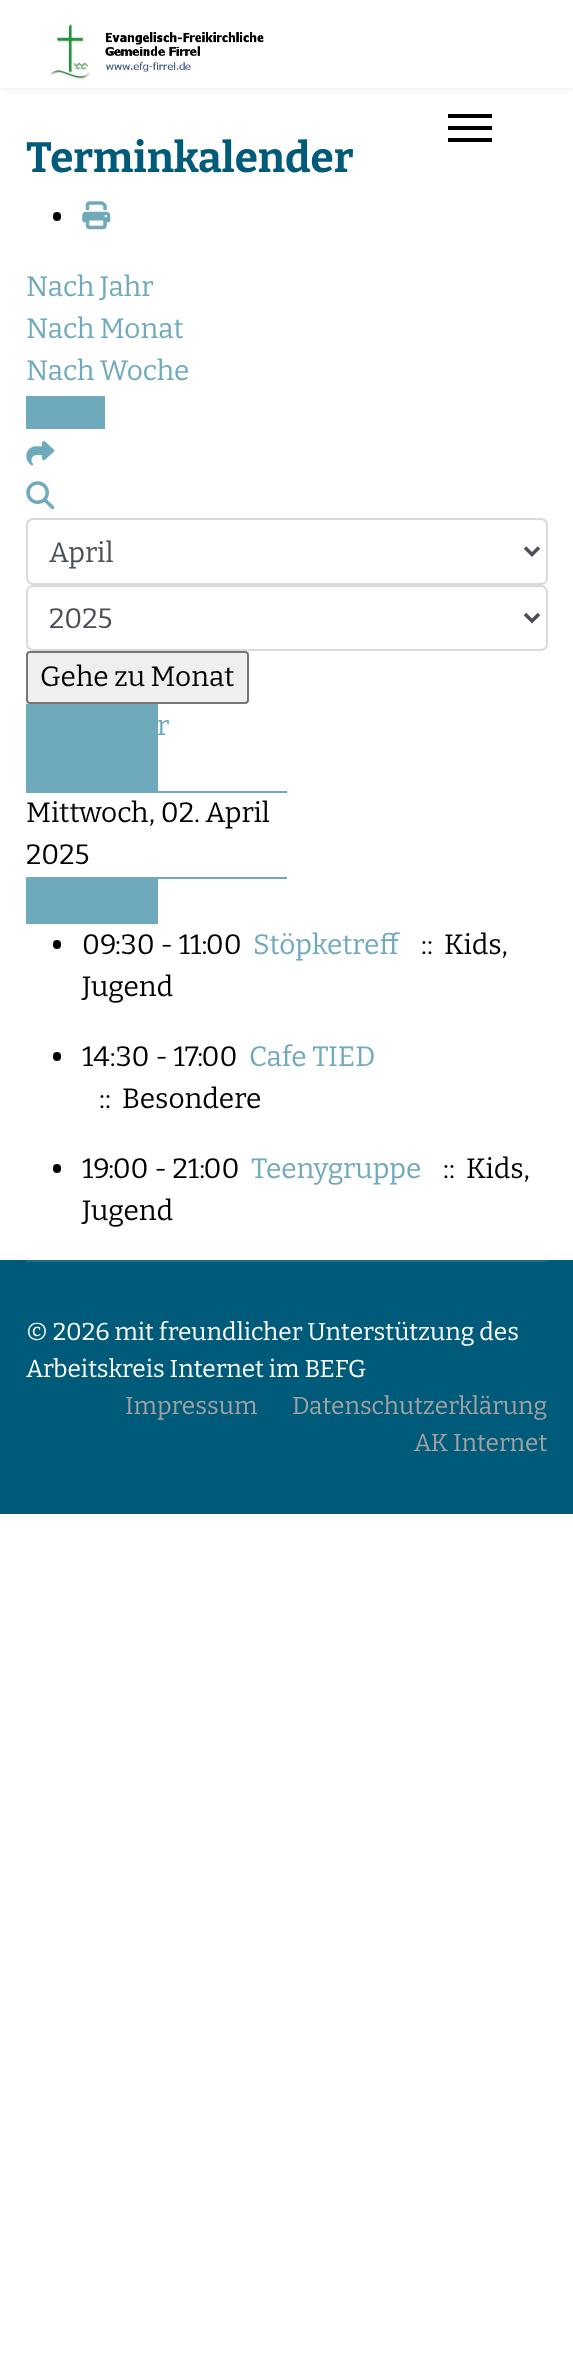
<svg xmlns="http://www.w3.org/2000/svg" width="573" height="2371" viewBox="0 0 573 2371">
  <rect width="100%" height="100%" fill="#fff"/>
  <path d="M0 0h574v88H0z" fill="#0000001a" filter="blur(3.5px)"/>
  <path d="M0 0h573v88H0z" fill="#fff"/>
  <image x="50" y="24" width="214" height="55" href="img/1.png"/>
  <path d="M448 114h44v4H448z" fill="#000"/>
  <path d="M448 126h44v4H448z" fill="#000"/>
  <path d="M448 138h44v4H448z" fill="#000"/>
  <rect x="53" y="212" width="8" height="9" rx="4" fill="#000"/>
  <image x="82" y="201" width="29" height="29" href="img/2.png"/>
  <path d="M26 396h79v33H26z" fill="#6faabc"/>
  <image x="26" y="441" width="29" height="25" href="img/3.png"/>
  <image x="26" y="481" width="29" height="29" href="img/4.png"/>
  <rect x="27" y="519" width="520" height="65" rx="6" fill="none" stroke="#d9d9d9" stroke-width="2"/>
  <path d="M525 547.5L532 554.5L539 547.5" fill="none" stroke="#495057" stroke-width="3.5"/>
  <rect x="27" y="586" width="520" height="64" rx="6" fill="none" stroke="#d9d9d9" stroke-width="2"/>
  <path d="M525 614L532 621L539 614" fill="none" stroke="#495057" stroke-width="3.5"/>
  <rect x="27" y="652" width="221" height="51" rx="3" fill="#efefef" stroke="#767676" stroke-width="2"/>
  <path d="M26 704h132v87H26z" fill="#6faabc"/>
  <path d="M26 791h261v2H26z" fill="#6faabc"/>
  <path d="M26 877h261v2H26z" fill="#6faabc"/>
  <path d="M26 879h132v45H26z" fill="#6faabc"/>
  <rect x="53" y="940" width="8" height="9" rx="4" fill="#000"/>
  <rect x="53" y="1052" width="8" height="9" rx="4" fill="#000"/>
  <rect x="53" y="1164" width="8" height="9" rx="4" fill="#000"/>
  <path d="M0 1260h573v254H0z" fill="#005a7a"/>
  <path d="M26 1260h522v2H26z" fill="#1a6b87"/>
  <text x="26" y="172" font-family="Bitter" font-size="42.25" font-weight="100" fill="#005a7a">Terminkalender</text>
  <g font-family="'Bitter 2'" font-size="28" font-weight="100" fill="#6faabc">
    <text x="26" y="296">Nach Jahr</text>
    <text x="26" y="338">Nach Monat</text>
    <text x="26" y="380">Nach Woche</text>
  </g>
  <g font-family="'Bitter 2'" font-size="28" font-weight="100" fill="#495057">
    <text x="49" y="562">April</text>
    <text x="49" y="628">2025</text>
  </g>
  <text x="40" y="686" font-family="'Bitter 2'" font-size="28" font-weight="100" fill="#000">Gehe zu Monat</text>
  <text x="157" y="735" font-family="'Bitter 2'" font-size="28" font-weight="100" fill="#6faabc">r</text>
  <g font-family="'Bitter 2'" font-size="28" font-weight="100" fill="#000">
    <text x="26" y="822">Mittwoch, 02. April</text>
    <text x="26" y="864">2025</text>
    <text x="82" y="954">09:30 - 11:00</text>
  </g>
  <text x="253" y="954" font-family="'Bitter 2'" font-size="28" font-weight="100" fill="#6faabc">Stöpketreff</text>
  <g font-family="'Bitter 2'" font-size="28" font-weight="100" fill="#000">
    <text x="421" y="954" xml:space="preserve">::  Kids,</text>
    <text x="82" y="996">Jugend</text>
    <text x="82" y="1066">14:30 - 17:00</text>
  </g>
  <text x="249" y="1066" font-family="'Bitter 2'" font-size="28" font-weight="100" fill="#6faabc">Cafe TIED</text>
  <g font-family="'Bitter 2'" font-size="28" font-weight="100" fill="#000">
    <text x="99" y="1108" xml:space="preserve">::  Besondere</text>
    <text x="82" y="1178">19:00 - 21:00</text>
  </g>
  <text x="251" y="1178" font-family="'Bitter 2'" font-size="28" font-weight="100" fill="#6faabc">Teenygruppe</text>
  <g font-family="'Bitter 2'" font-size="28" font-weight="100" fill="#000">
    <text x="443" y="1178" xml:space="preserve">::  Kids,</text>
    <text x="82" y="1220">Jugend</text>
  </g>
  <g font-family="'Bitter 2'" font-size="24.5" font-weight="100" fill="#fff">
    <text x="26" y="1340">© 2026 mit freundlicher Unterstützung des</text>
    <text x="26" y="1377">Arbeitskreis Internet im BEFG</text>
  </g>
  <g font-family="'Bitter 2'" font-size="24.5" font-weight="100" fill="#a2a2a2">
    <text x="125" y="1414">Impressum</text>
    <text x="292" y="1414">Datenschutzerklärung</text>
    <text x="414" y="1451">AK Internet</text>
  </g>
</svg>
